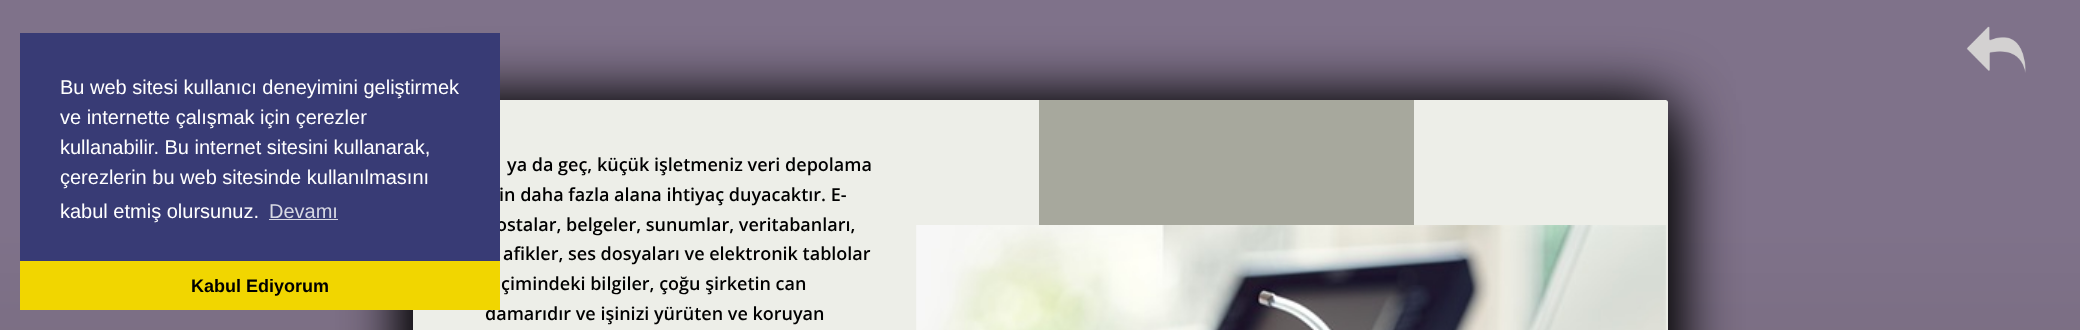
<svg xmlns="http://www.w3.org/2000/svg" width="2080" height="330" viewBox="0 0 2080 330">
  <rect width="100%" height="100%" fill="#fff"/>
  <image x="0" y="0" width="2080" height="330" href="img/1.png"/>
  <image x="1966" y="26" width="60" height="47" href="img/2.png"/>
  <rect x="413" y="100" width="1255" height="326" rx="2.5" fill="#000" filter="blur(31px)"/>
  <rect x="413" y="124" width="1255" height="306" rx="2.5" fill="#000" filter="blur(32.5px)"/>
  <path d="M415.5 100H1665.5C1667 100 1668 101 1668 102.5V330H413V102.5C413 101 414 100 415.5 100Z" fill="#edeee8"/>
  <path d="M1039 100h375v125H1039z" fill="#a7a89d"/>
  <image x="916" y="225" width="751" height="105" href="img/3.png"/>
  <g font-family="Open Sans" font-size="18" font-weight="600" fill="#000">
    <text x="507" y="171">ya da geç, küçük işletmeniz veri depolama</text>
    <text x="499" y="201">in daha fazla alana ihtiyaç duyacaktır. E-</text>
    <text x="496" y="231">ostalar, belgeler, sunumlar, veritabanları,</text>
  </g>
  <path d="M20 33h480v228H20z" fill="#383b75"/>
  <text x="269" y="218" font-family="Liberation Sans" font-size="20" fill="#d7d8e3">Devamı</text>
  <path d="M269 219h69v1H269z" fill="#d7d8e3"/>
  <g font-family="Liberation Sans" font-size="20" fill="#fff">
    <text x="60" y="218">kabul etmiş olursunuz.</text>
    <text x="60" y="184">çerezlerin bu web sitesinde kullanılmasını</text>
    <text x="60" y="154">kullanabilir. Bu internet sitesini kullanarak,</text>
    <text x="60" y="124">ve internette çalışmak için çerezler</text>
    <text x="60" y="94">Bu web sitesi kullanıcı deneyimini geliştirmek</text>
  </g>
  <g font-family="Open Sans" font-size="18" font-weight="600" fill="#000">
    <text x="503" y="260">afikler, ses dosyaları ve elektronik tablolar</text>
    <text x="501" y="290">çimindeki bilgiler, çoğu şirketin can</text>
    <text x="485" y="320">damarıdır ve işinizi yürüten ve koruyan</text>
  </g>
  <path d="M20 261h480v49H20z" fill="#f1d600"/>
  <text x="191" y="292" font-family="Liberation Sans" font-size="18" font-weight="bold" fill="#000">Kabul Ediyorum</text>
</svg>
